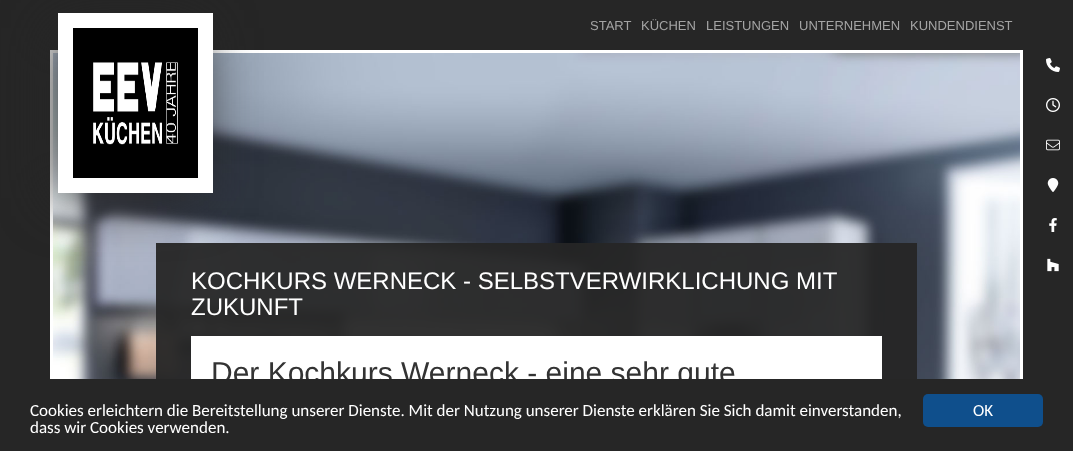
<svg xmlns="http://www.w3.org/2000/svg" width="1073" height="451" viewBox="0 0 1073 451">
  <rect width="100%" height="100%" fill="#262626"/>
  <image x="1046" y="58" width="14" height="14" href="img/1.png"/>
  <image x="1046" y="98" width="14" height="14" href="img/2.png"/>
  <image x="1046" y="139" width="14" height="12" href="img/3.png"/>
  <image x="1047" y="178" width="12" height="14" href="img/4.png"/>
  <image x="1049" y="218" width="8" height="14" href="img/5.png"/>
  <image x="1047" y="258" width="12" height="14" href="img/6.png"/>
  <image x="53" y="53" width="967" height="326" href="img/7.png"/>
  <path d="M51.5 51.5h970v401H51.5z" fill="none" stroke="#fff" stroke-width="3"/>
  <path d="M156 243h761v136H156z" fill="#262626f2"/>
  <path d="M55 28h145v170H55z" fill="#262626" filter="blur(26.5px)"/>
  <path d="M65.5 20.5h140v165H65.5z" fill="none" stroke="#fff" stroke-width="15"/>
  <image x="73" y="28" width="125" height="150" href="img/8.png"/>
  <path d="M191 336h691v43H191z" fill="#fff"/>
  <g font-family="Liberation Sans" font-size="13" fill="#a4a4a4">
    <text x="590" y="30">START</text>
    <text x="641" y="30">KÜCHEN</text>
    <text x="706" y="30">LEISTUNGEN</text>
    <text x="799" y="30">UNTERNEHMEN</text>
    <text x="910" y="30">KUNDENDIENST</text>
  </g>
  <g font-family="Liberation Sans" font-size="24" fill="#fff">
    <text x="191" y="289">KOCHKURS WERNECK - SELBSTVERWIRKLICHUNG MIT</text>
    <text x="191" y="315">ZUKUNFT</text>
  </g>
  <text x="211" y="383" font-family="Liberation Sans" font-size="30" fill="#333">Der Kochkurs Werneck - eine sehr gute</text>
  <path d="M50 379h973v72H50z" fill="#262626"/>
  <g font-family="Carlito" font-size="17" fill="#fff">
    <text x="30" y="416">Cookies erleichtern die Bereitstellung unserer Dienste. Mit der Nutzung unserer Dienste erklären Sie Sich damit einverstanden,</text>
    <text x="30" y="433">dass wir Cookies verwenden.</text>
  </g>
  <rect x="923" y="394" width="120" height="33" rx="5" fill="#0f4f8c"/>
  <text x="973" y="416" font-family="Carlito" font-size="17" fill="#fff">OK</text>
</svg>
